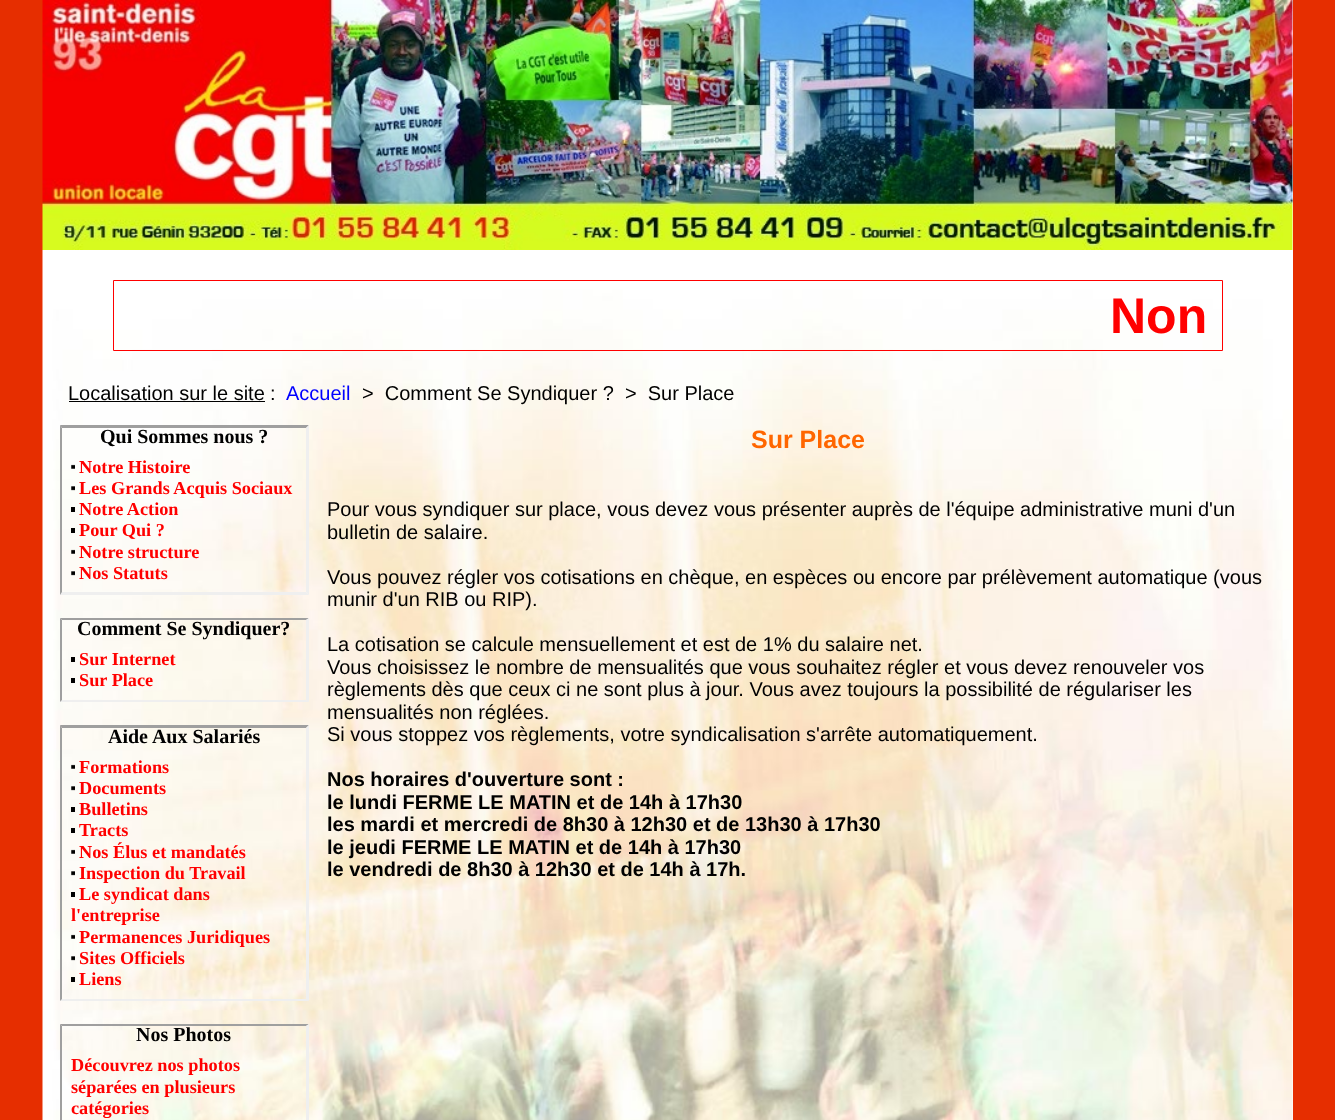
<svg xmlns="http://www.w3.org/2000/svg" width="1335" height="1120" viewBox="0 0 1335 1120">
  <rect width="100%" height="100%" fill="#e62e00"/>
  <path d="M1292 0h1v1120H1292z" fill="#fff"/>
  <image x="42" y="0" width="1251" height="250" href="img/1.png"/>
  <image x="42" y="250" width="1251" height="870" href="img/2.png"/>
  <path d="M113.5 280.5h1109v70H113.5z" fill="none" stroke="#f00"/>
  <path d="M69 401h196v1H69z" fill="#000"/>
  <path d="M60 425H309L306 428H62Z" fill="#9f9f9f"/>
  <path d="M309 425V595L306 592V428Z" fill="#efefef"/>
  <path d="M309 595H60L62 592H306Z" fill="#efefef"/>
  <path d="M60 595V425L62 428V592Z" fill="#9f9f9f"/>
  <image x="71" y="464" width="4" height="5" href="img/3.png"/>
  <image x="71" y="486" width="4" height="5" href="img/4.png"/>
  <path d="M71 507h4v5H71z" fill="#000"/>
  <path d="M71 528h4v5H71z" fill="#000"/>
  <image x="71" y="549" width="4" height="5" href="img/5.png"/>
  <image x="71" y="571" width="4" height="5" href="img/6.png"/>
  <path d="M60 618H309L306 620H62Z" fill="#9f9f9f"/>
  <path d="M309 618V702L306 700V620Z" fill="#efefef"/>
  <path d="M309 702H60L62 700H306Z" fill="#efefef"/>
  <path d="M60 702V618L62 620V700Z" fill="#9f9f9f"/>
  <path d="M71 657h4v5H71z" fill="#000"/>
  <path d="M71 678h4v5H71z" fill="#000"/>
  <path d="M60 725H309L306 728H62Z" fill="#9f9f9f"/>
  <path d="M309 725V1001L306 999V728Z" fill="#efefef"/>
  <path d="M309 1001H60L62 999H306Z" fill="#efefef"/>
  <path d="M60 1001V725L62 728V999Z" fill="#9f9f9f"/>
  <image x="71" y="764" width="4" height="5" href="img/7.png"/>
  <image x="71" y="786" width="4" height="5" href="img/8.png"/>
  <path d="M71 807h4v5H71z" fill="#000"/>
  <path d="M71 828h4v5H71z" fill="#000"/>
  <image x="71" y="849" width="4" height="5" href="img/9.png"/>
  <image x="71" y="871" width="4" height="5" href="img/10.png"/>
  <path d="M71 892h4v5H71z" fill="#000"/>
  <image x="71" y="934" width="4" height="5" href="img/11.png"/>
  <image x="71" y="956" width="4" height="5" href="img/12.png"/>
  <path d="M71 977h4v5H71z" fill="#000"/>
  <path d="M60 1024H309L306 1026H62Z" fill="#9f9f9f"/>
  <path d="M309 1024V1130L306 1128V1026Z" fill="#efefef"/>
  <path d="M60 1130V1024L62 1026V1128Z" fill="#9f9f9f"/>
  <text x="1110" y="333" font-family="Liberation Sans" font-size="50" font-weight="bold" fill="#f00">Non</text>
  <g font-family="Liberation Sans" font-size="20" fill="#000">
    <text x="68" y="400">Localisation sur le site</text>
    <text x="270" y="400">:</text>
  </g>
  <text x="286" y="400" font-family="Liberation Sans" font-size="20" fill="#00f">Accueil</text>
  <text x="362" y="400" font-family="Liberation Sans" font-size="20" fill="#000" xml:space="preserve">&gt;  Comment Se Syndiquer ?  &gt;  Sur Place</text>
  <text x="100" y="443" font-family="Liberation Serif" font-size="20" font-weight="bold" fill="#000">Qui Sommes nous ?</text>
  <g font-family="Liberation Serif" font-size="18.25" font-weight="bold" fill="#f00">
    <text x="79" y="473">Notre Histoire</text>
    <text x="79" y="494">Les Grands Acquis Sociaux</text>
    <text x="79" y="515">Notre Action</text>
    <text x="79" y="536">Pour Qui ?</text>
    <text x="79" y="558">Notre structure</text>
    <text x="79" y="579">Nos Statuts</text>
  </g>
  <text x="77" y="635" font-family="Liberation Serif" font-size="20" font-weight="bold" fill="#000">Comment Se Syndiquer?</text>
  <g font-family="Liberation Serif" font-size="18.25" font-weight="bold" fill="#f00">
    <text x="79" y="665">Sur Internet</text>
    <text x="79" y="686">Sur Place</text>
  </g>
  <text x="108" y="743" font-family="Liberation Serif" font-size="20" font-weight="bold" fill="#000">Aide Aux Salariés</text>
  <g font-family="Liberation Serif" font-size="18.25" font-weight="bold" fill="#f00">
    <text x="79" y="773">Formations</text>
    <text x="79" y="794">Documents</text>
    <text x="79" y="815">Bulletins</text>
    <text x="79" y="836">Tracts</text>
    <text x="79" y="858">Nos Élus et mandatés</text>
    <text x="79" y="879">Inspection du Travail</text>
    <text x="79" y="900">Le syndicat dans</text>
    <text x="71" y="921">l'entreprise</text>
    <text x="79" y="943">Permanences Juridiques</text>
    <text x="79" y="964">Sites Officiels</text>
    <text x="79" y="985">Liens</text>
  </g>
  <text x="136" y="1041" font-family="Liberation Serif" font-size="20" font-weight="bold" fill="#000">Nos Photos</text>
  <g font-family="Liberation Serif" font-size="18.25" font-weight="bold" fill="#f00">
    <text x="71" y="1071">Découvrez nos photos</text>
    <text x="71" y="1093">séparées en plusieurs</text>
    <text x="71" y="1114">catégories</text>
  </g>
  <text x="751" y="448" font-family="Liberation Sans" font-size="25" font-weight="bold" fill="#f60">Sur Place</text>
  <g font-family="Liberation Sans" font-size="20" fill="#000">
    <text x="327" y="516">Pour vous syndiquer sur place, vous devez vous présenter auprès de l'équipe administrative muni d'un</text>
    <text x="327" y="539">bulletin de salaire.</text>
    <text x="327" y="584">Vous pouvez régler vos cotisations en chèque, en espèces ou encore par prélèvement automatique (vous</text>
    <text x="327" y="606">munir d'un RIB ou RIP).</text>
    <text x="327" y="651">La cotisation se calcule mensuellement et est de 1% du salaire net.</text>
    <text x="327" y="674">Vous choisissez le nombre de mensualités que vous souhaitez régler et vous devez renouveler vos</text>
    <text x="327" y="696">règlements dès que ceux ci ne sont plus à jour. Vous avez toujours la possibilité de régulariser les</text>
    <text x="327" y="719">mensualités non réglées.</text>
    <text x="327" y="741">Si vous stoppez vos règlements, votre syndicalisation s'arrête automatiquement.</text>
  </g>
  <g font-family="Liberation Sans" font-size="20" font-weight="bold" fill="#000">
    <text x="327" y="786">Nos horaires d'ouverture sont :</text>
    <text x="327" y="809">le lundi FERME LE MATIN et de 14h à 17h30</text>
    <text x="327" y="831">les mardi et mercredi de 8h30 à 12h30 et de 13h30 à 17h30</text>
    <text x="327" y="854">le jeudi FERME LE MATIN et de 14h à 17h30</text>
    <text x="327" y="876">le vendredi de 8h30 à 12h30 et de 14h à 17h.</text>
  </g>
</svg>
